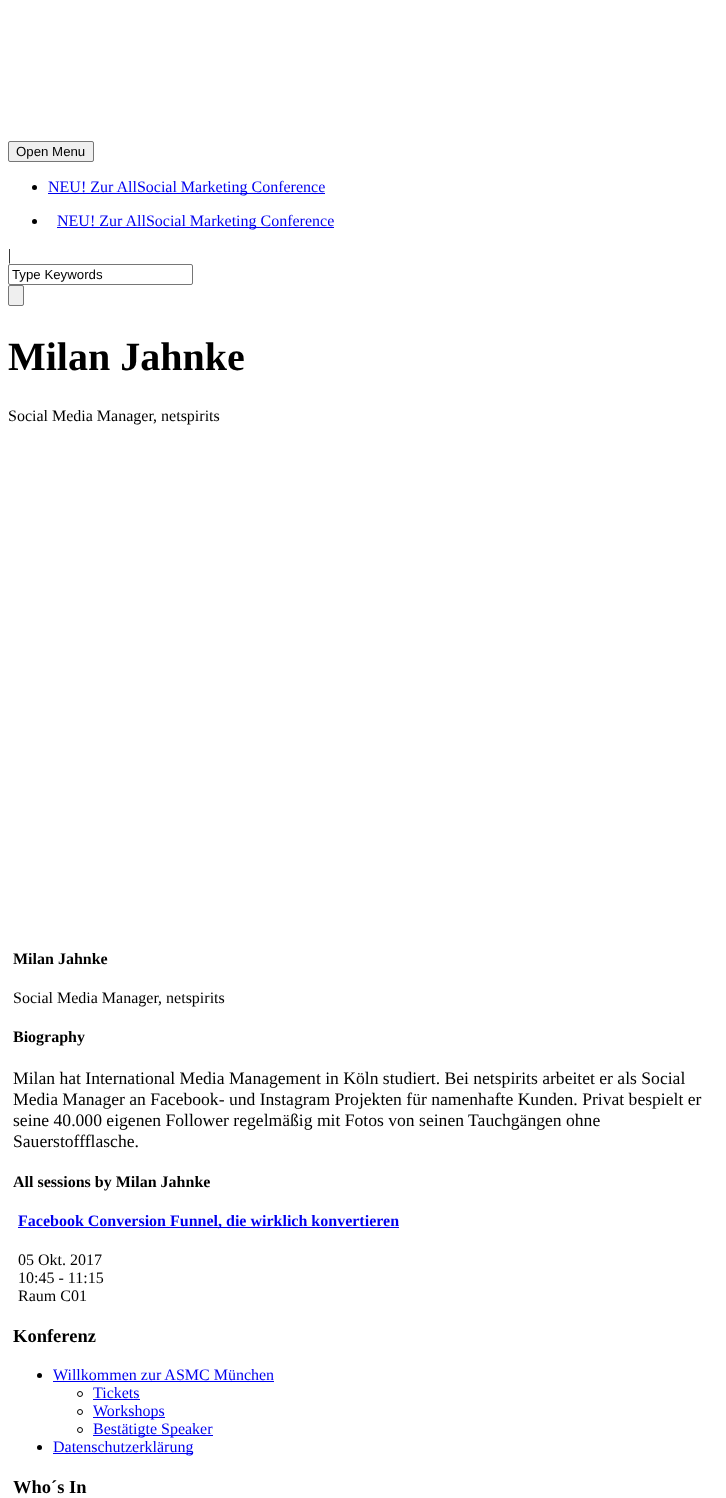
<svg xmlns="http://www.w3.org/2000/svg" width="726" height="1498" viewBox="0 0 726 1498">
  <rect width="100%" height="100%" fill="#fff"/>
  <rect x="8.5" y="141.5" width="85" height="20" rx="1.5" fill="#efefef" stroke="#767676"/>
  <circle cx="34.5" cy="187.5" r="2.5" fill="#000"/>
  <path d="M48 193h277v1H48z" fill="#00e"/>
  <circle cx="34.5" cy="221.5" r="2.5" fill="#000"/>
  <path d="M57 227h277v1H57z" fill="#00e"/>
  <rect x="8.5" y="264.5" width="184" height="20" rx="1.5" fill="none" stroke="#767676"/>
  <rect x="8.5" y="285.5" width="15" height="20" rx="1.5" fill="#efefef" stroke="#767676"/>
  <path d="M18 1227h381v1H18z" fill="#00e"/>
  <circle cx="39.5" cy="1375.5" r="2.5" fill="#000"/>
  <path d="M53 1381h221v1H53z" fill="#00e"/>
  <circle cx="80" cy="1394" r="2.5" fill="none" stroke="#000"/>
  <path d="M93 1399h47v1H93z" fill="#00e"/>
  <circle cx="80" cy="1412" r="2.5" fill="none" stroke="#000"/>
  <path d="M93 1417h72v1H93z" fill="#00e"/>
  <circle cx="80" cy="1430" r="2.5" fill="none" stroke="#000"/>
  <path d="M93 1435h120v1H93z" fill="#00e"/>
  <circle cx="39.5" cy="1447.5" r="2.5" fill="#000"/>
  <path d="M53 1453h140v1H53z" fill="#00e"/>
  <text x="16" y="156" font-family="Liberation Sans" font-size="13.25" fill="#000">Open Menu</text>
  <g font-family="Liberation Serif" font-size="16" fill="#00e">
    <text x="48" y="192">NEU! Zur AllSocial Marketing Conference</text>
    <text x="57" y="226">NEU! Zur AllSocial Marketing Conference</text>
  </g>
  <text x="8" y="260" font-family="Liberation Serif" font-size="16" fill="#000">|</text>
  <text x="12" y="279" font-family="Liberation Sans" font-size="13.25" fill="#000">Type Keywords</text>
  <text x="8" y="370" font-family="Liberation Serif" font-size="40" font-weight="bold" fill="#000">Milan Jahnke</text>
  <text x="8" y="421" font-family="Liberation Serif" font-size="16" fill="#000">Social Media Manager, netspirits</text>
  <text x="13" y="964" font-family="Liberation Serif" font-size="16" font-weight="bold" fill="#000">Milan Jahnke</text>
  <text x="13" y="1003" font-family="Liberation Serif" font-size="16" fill="#000">Social Media Manager, netspirits</text>
  <text x="13" y="1042" font-family="Liberation Serif" font-size="16" font-weight="bold" fill="#000">Biography</text>
  <g font-family="Liberation Serif" font-size="17.6" fill="#000">
    <text x="13" y="1084">Milan hat International Media Management in Köln studiert. Bei netspirits arbeitet er als Social</text>
    <text x="13" y="1105">Media Manager an Facebook- und Instagram Projekten für namenhafte Kunden. Privat bespielt er</text>
    <text x="13" y="1126">seine 40.000 eigenen Follower regelmäßig mit Fotos von seinen Tauchgängen ohne</text>
    <text x="13" y="1147">Sauerstoffflasche.</text>
  </g>
  <text x="13" y="1187" font-family="Liberation Serif" font-size="16" font-weight="bold" fill="#000">All sessions by Milan Jahnke</text>
  <text x="18" y="1226" font-family="Liberation Serif" font-size="16" font-weight="bold" fill="#00e">Facebook Conversion Funnel, die wirklich konvertieren</text>
  <g font-family="Liberation Serif" font-size="16" fill="#000">
    <text x="18" y="1265">05 Okt. 2017</text>
    <text x="18" y="1283">10:45 - 11:15</text>
    <text x="18" y="1301">Raum C01</text>
  </g>
  <text x="13" y="1342" font-family="Liberation Serif" font-size="18.5" font-weight="bold" fill="#000">Konferenz</text>
  <g font-family="Liberation Serif" font-size="16" fill="#00e">
    <text x="53" y="1380">Willkommen zur ASMC München</text>
    <text x="93" y="1398">Tickets</text>
    <text x="93" y="1416">Workshops</text>
    <text x="93" y="1434">Bestätigte Speaker</text>
    <text x="53" y="1452">Datenschutzerklärung</text>
  </g>
  <text x="13" y="1493" font-family="Liberation Serif" font-size="18.5" font-weight="bold" fill="#000">Who´s In</text>
</svg>
